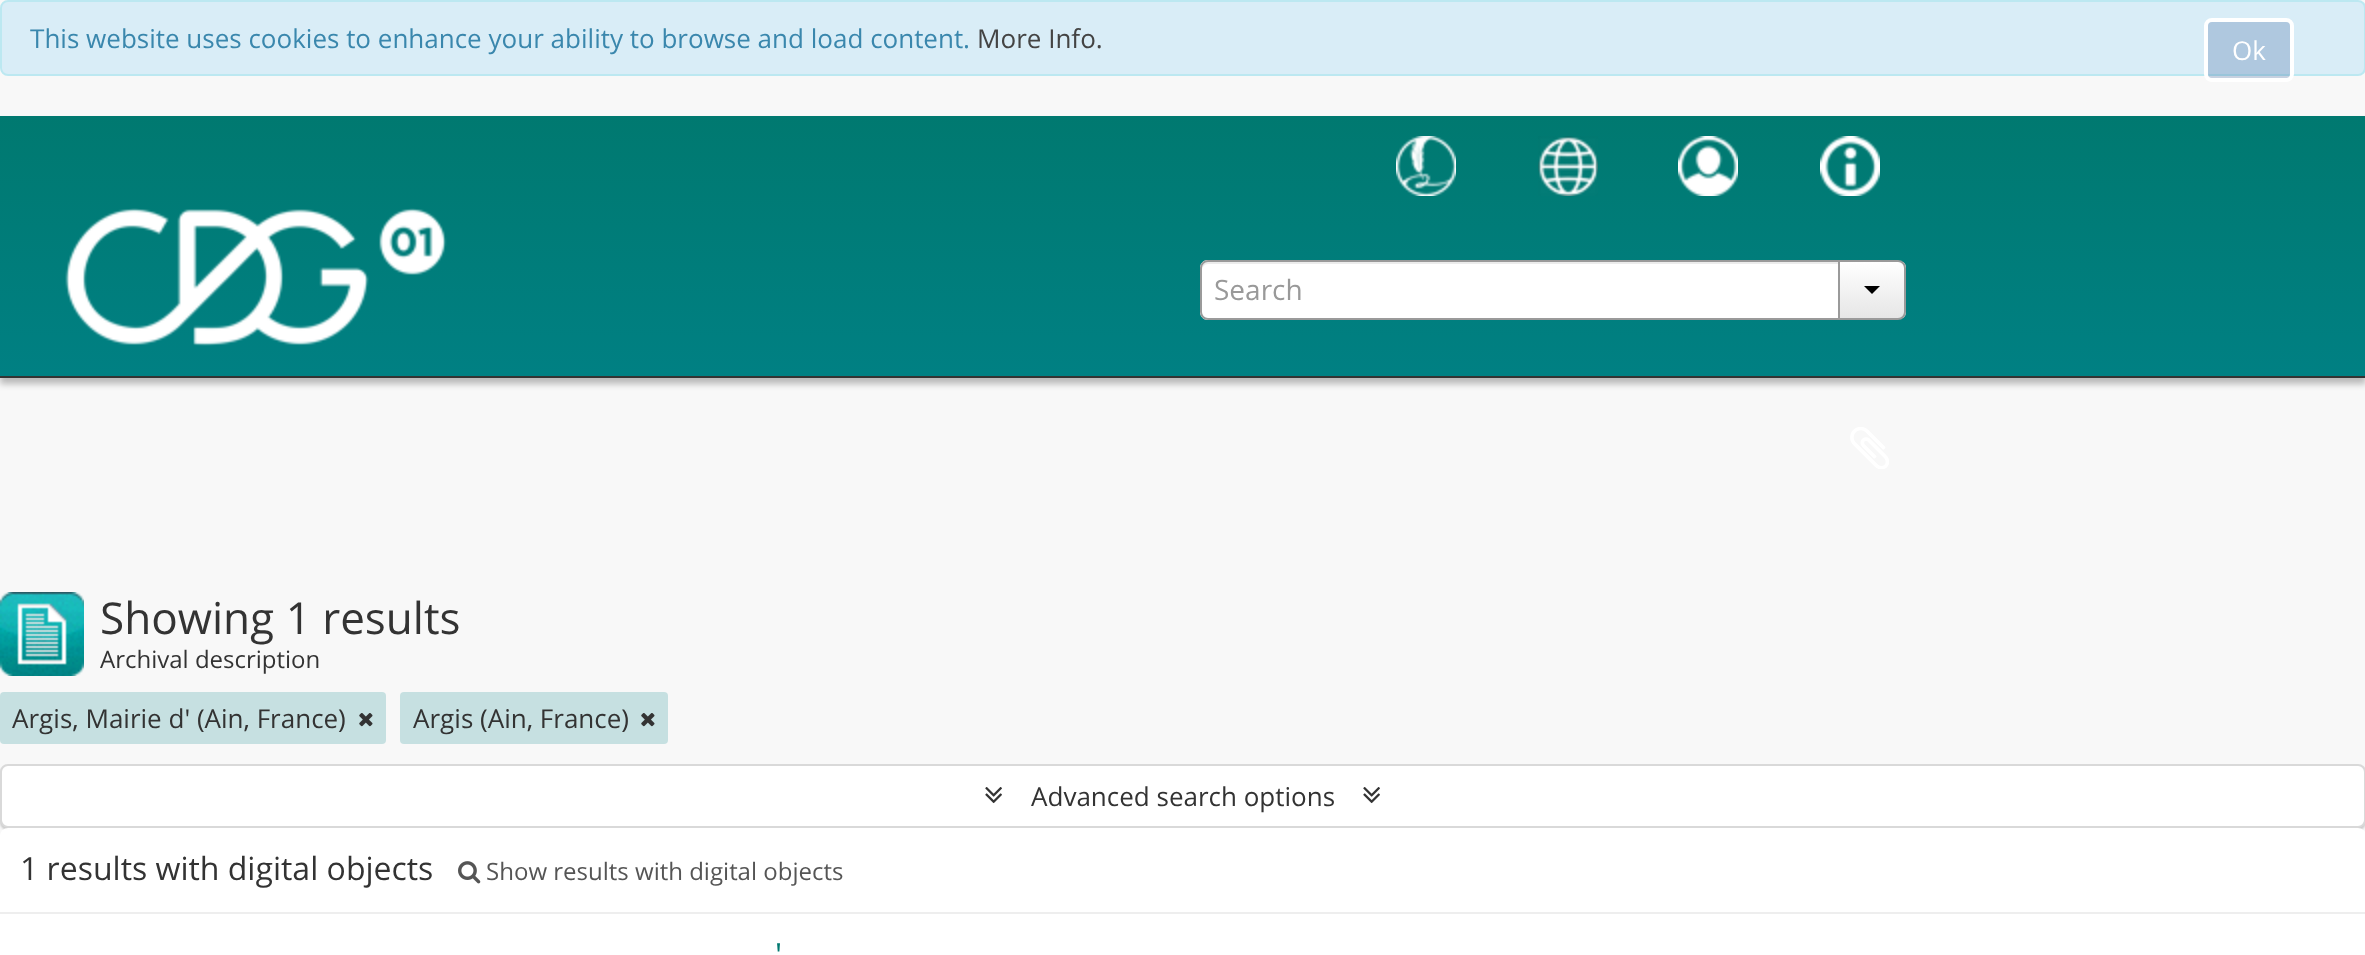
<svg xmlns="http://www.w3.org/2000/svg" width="2365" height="955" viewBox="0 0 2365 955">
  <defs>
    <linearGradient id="g1" gradientUnits="userSpaceOnUse" x1="1183" y1="116" x2="1183" y2="376"><stop offset="0" stop-color="#007970"/><stop offset="1" stop-color="#008083"/></linearGradient>
    <clipPath id="clip1"><path d="M1838 260H1898C1902.5 260 1906 263.5 1906 268V312C1906 316.5 1902.5 320 1898 320H1838Z"/></clipPath>
    <linearGradient id="g2" gradientUnits="userSpaceOnUse" x1="1872" y1="262" x2="1872" y2="318"><stop offset="0" stop-color="#fff"/><stop offset="1" stop-color="#e6e6e6"/></linearGradient>
  </defs>
  <rect width="100%" height="100%" fill="#f8f8f8"/>
  <rect x="1" y="1" width="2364" height="74" rx="7" fill="#d9edf7" stroke="#bce8f1" stroke-width="2"/>
  <rect x="2206" y="20" width="86" height="60" rx="6" fill="#325a9640" stroke="#fff" stroke-width="4"/>
  <path d="M0 122h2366v262H0z" fill="#00000040" filter="blur(3px)"/>
  <path d="M0 116h2365v260H0z" fill="url(#g1)"/>
  <path d="M0 376h2365v2H0z" fill="#333"/>
  <image x="1396" y="136" width="60" height="60" href="img/1.png"/>
  <image x="1538" y="136" width="60" height="60" href="img/2.png"/>
  <image x="1678" y="136" width="60" height="60" href="img/3.png"/>
  <image x="1820" y="136" width="60" height="60" href="img/4.png"/>
  <image x="65" y="208" width="382" height="138" href="img/5.png"/>
  <path d="M1208 260H1840V320H1208C1203.5 320 1200 316.5 1200 312V268C1200 263.5 1203.5 260 1208 260Z" fill="#fff"/>
  <path d="M1208 264H1838V262H1208C1203 262 1202 266 1202 270C1202 267 1205 264 1208 264Z" fill="#ececec"/>
  <path d="M1208 261H1839V319H1208C1204 319 1201 316 1201 312V268C1201 264 1204 261 1208 261Z" fill="none" stroke="#9a9a9a" stroke-width="2"/>
  <g clip-path="url(#clip1)">
    <path d="M1840 262h66v56H1840z" fill="url(#g2)"/>
  </g>
  <path d="M1839 261H1898C1902 261 1905 264 1905 268V312C1905 316 1902 319 1898 319H1839Z" fill="none" stroke="#9a9a9a" stroke-width="2"/>
  <path d="M1864 286H1880L1872 294Z" fill="#000"/>
  <image x="1850" y="427" width="39" height="42" href="img/6.png"/>
  <image x="0" y="592" width="84" height="84" href="img/7.png"/>
  <rect y="692" width="386" height="52" rx="4" fill="#c6e0e1"/>
  <image x="359" y="713" width="14" height="14" href="img/8.png"/>
  <rect x="400" y="692" width="268" height="52" rx="4" fill="#c6e0e1"/>
  <image x="641" y="713" width="14" height="14" href="img/8.png"/>
  <rect y="766" width="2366" height="64" rx="8" fill="#00000033" filter="blur(1px)"/>
  <rect x="1" y="765" width="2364" height="62" rx="7" fill="#fff" stroke="#d9d9d9" stroke-width="2"/>
  <image x="985" y="787" width="17" height="17" href="img/9.png"/>
  <image x="1363" y="787" width="17" height="17" href="img/9.png"/>
  <rect y="828" width="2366" height="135" rx="8" fill="#fff"/>
  <path d="M0 912h2365v2H0z" fill="#eee"/>
  <image x="458" y="861" width="23" height="23" href="img/10.png"/>
  <text x="30" y="48" font-family="Open Sans" font-size="26" fill="#3a87ad">This website uses cookies to enhance your ability to browse and load content.</text>
  <text x="977" y="48" font-family="Open Sans" font-size="26" fill="#444">More Info.</text>
  <text x="2232" y="60" font-family="Open Sans" font-size="26" fill="#fff">Ok</text>
  <text x="1214" y="300" font-family="Open Sans" font-size="28" fill="#999">Search</text>
  <text x="100" y="634" font-family="Open Sans" font-size="44" fill="#333">Showing 1 results</text>
  <text x="100" y="668" font-family="Open Sans" font-size="24" fill="#333">Archival description</text>
  <g font-family="Open Sans" font-size="26" fill="#333">
    <text x="12" y="728">Argis, Mairie d' (Ain, France)</text>
    <text x="413" y="728">Argis (Ain, France)</text>
    <text x="1031" y="806">Advanced search options</text>
  </g>
  <text x="20" y="880" font-family="Open Sans" font-size="32" fill="#333">1 results with digital objects</text>
  <text x="486" y="880" font-family="Open Sans" font-size="24" fill="#555">Show results with digital objects</text>
  <text x="775" y="966" font-family="Open Sans" font-size="32" fill="#007970">'</text>
</svg>
